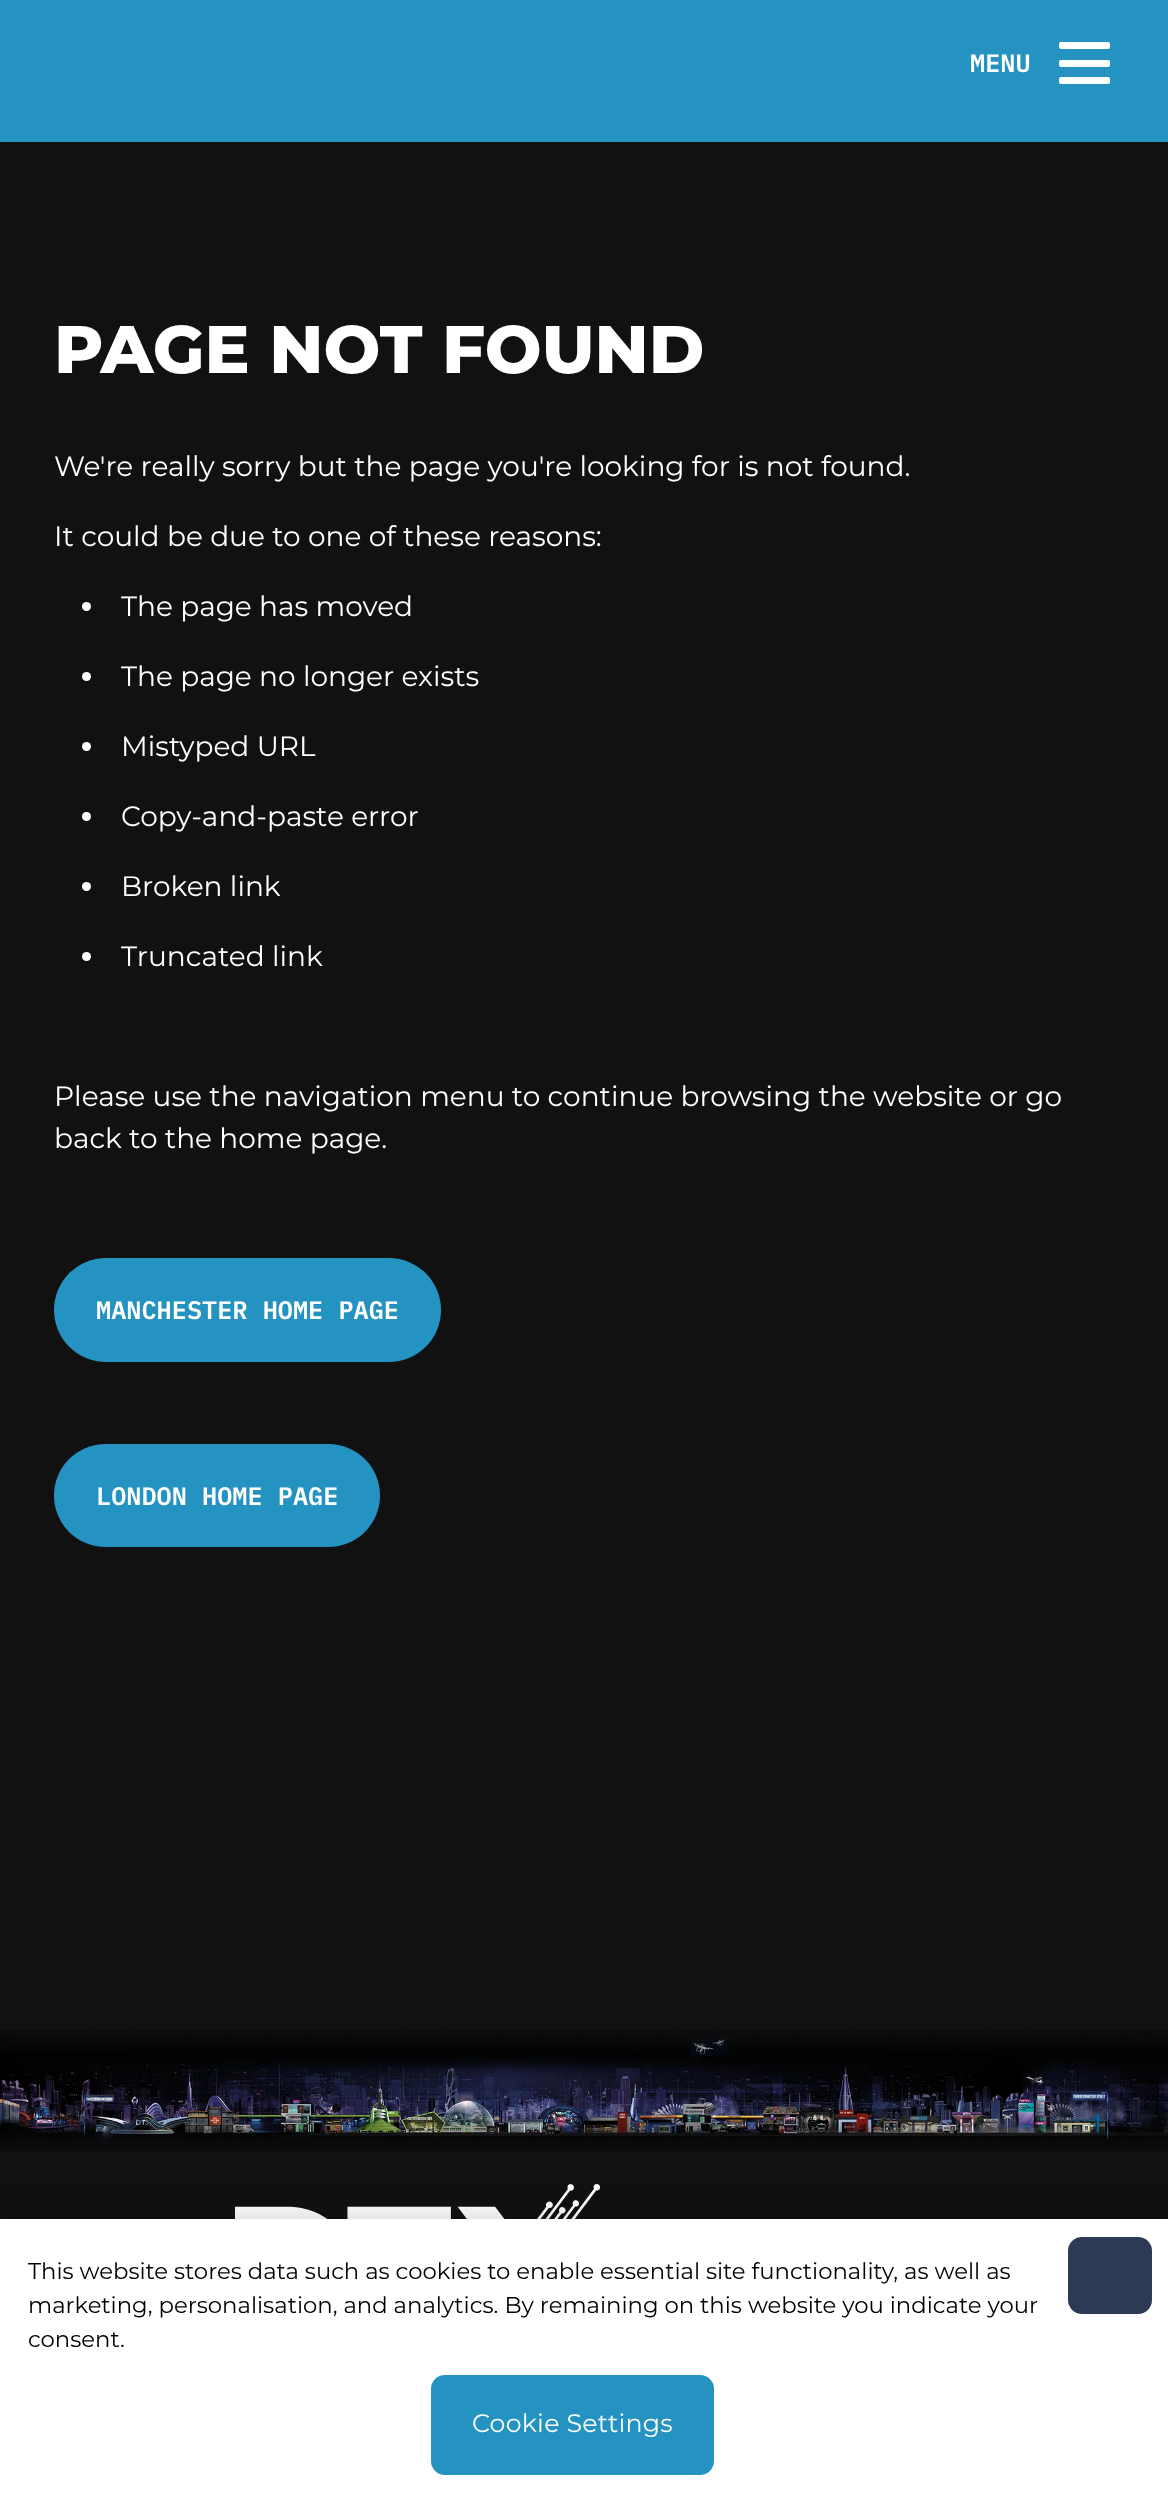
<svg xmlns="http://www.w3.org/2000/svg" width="1168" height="2502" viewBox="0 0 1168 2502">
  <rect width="100%" height="100%" fill="#111"/>
  <path d="M0 0h1168v142H0z" fill="#2593c1"/>
  <rect x="1059" y="60" width="51" height="7" rx="2" fill="#fff"/>
  <rect x="1059" y="42" width="51" height="7" rx="2" fill="#fff"/>
  <rect x="1059" y="77" width="51" height="7" rx="2" fill="#fff"/>
  <circle cx="86.5" cy="606.5" r="4.5" fill="#fff"/>
  <circle cx="86.5" cy="676.5" r="4.5" fill="#fff"/>
  <circle cx="86.5" cy="746.5" r="4.5" fill="#fff"/>
  <circle cx="86.5" cy="816.5" r="4.5" fill="#fff"/>
  <circle cx="86.5" cy="886.5" r="4.5" fill="#fff"/>
  <circle cx="86.5" cy="956.5" r="4.5" fill="#fff"/>
  <rect x="54" y="1258" width="387" height="104" rx="52" fill="#2593c1"/>
  <rect x="54" y="1444" width="326" height="103" rx="51.5" fill="#2593c1"/>
  <image x="0" y="2030" width="1168" height="122" href="img/1.png"/>
  <image x="235" y="2184" width="366" height="35" href="img/2.png"/>
  <path d="M0 2219h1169v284H0z" fill="#00000033" filter="blur(16px)"/>
  <path d="M0 2219h1168v283H0z" fill="#fff"/>
  <rect x="431" y="2375" width="283" height="100" rx="14" fill="#2593c1"/>
  <rect x="1068" y="2237" width="84" height="77" rx="14" fill="#2d3a54"/>
  <text x="970" y="72" font-family="IBM Plex Mono" font-size="25.25" font-weight="600" fill="#fff">MENU</text>
  <text x="54" y="373" font-family="Montserrat" font-size="67.25" font-weight="800" fill="#fff">PAGE NOT FOUND</text>
  <g font-family="Montserrat" font-size="28" fill="#fff">
    <text x="54" y="476">We're really sorry but the page you're looking for is not found.</text>
    <text x="54" y="546">It could be due to one of these reasons:</text>
    <text x="121" y="616">The page has moved</text>
    <text x="121" y="686">The page no longer exists</text>
    <text x="121" y="756">Mistyped URL</text>
    <text x="121" y="826">Copy-and-paste error</text>
    <text x="121" y="896">Broken link</text>
    <text x="121" y="966">Truncated link</text>
    <text x="54" y="1106">Please use the navigation menu to continue browsing the website or go</text>
    <text x="54" y="1148">back to the home page.</text>
  </g>
  <g font-family="IBM Plex Mono" font-size="25.25" font-weight="600" fill="#fff">
    <text x="96" y="1319">MANCHESTER HOME PAGE</text>
    <text x="96" y="1505">LONDON HOME PAGE</text>
  </g>
  <g font-family="Montserrat" font-size="22.75" fill="#000">
    <text x="28" y="2279">This website stores data such as cookies to enable essential site functionality, as well as</text>
    <text x="28" y="2313">marketing, personalisation, and analytics. By remaining on this website you indicate your</text>
    <text x="28" y="2347">consent.</text>
  </g>
  <text x="472" y="2432" font-family="Montserrat" font-size="25.25" letter-spacing="0.25" fill="#fff">Cookie Settings</text>
</svg>
